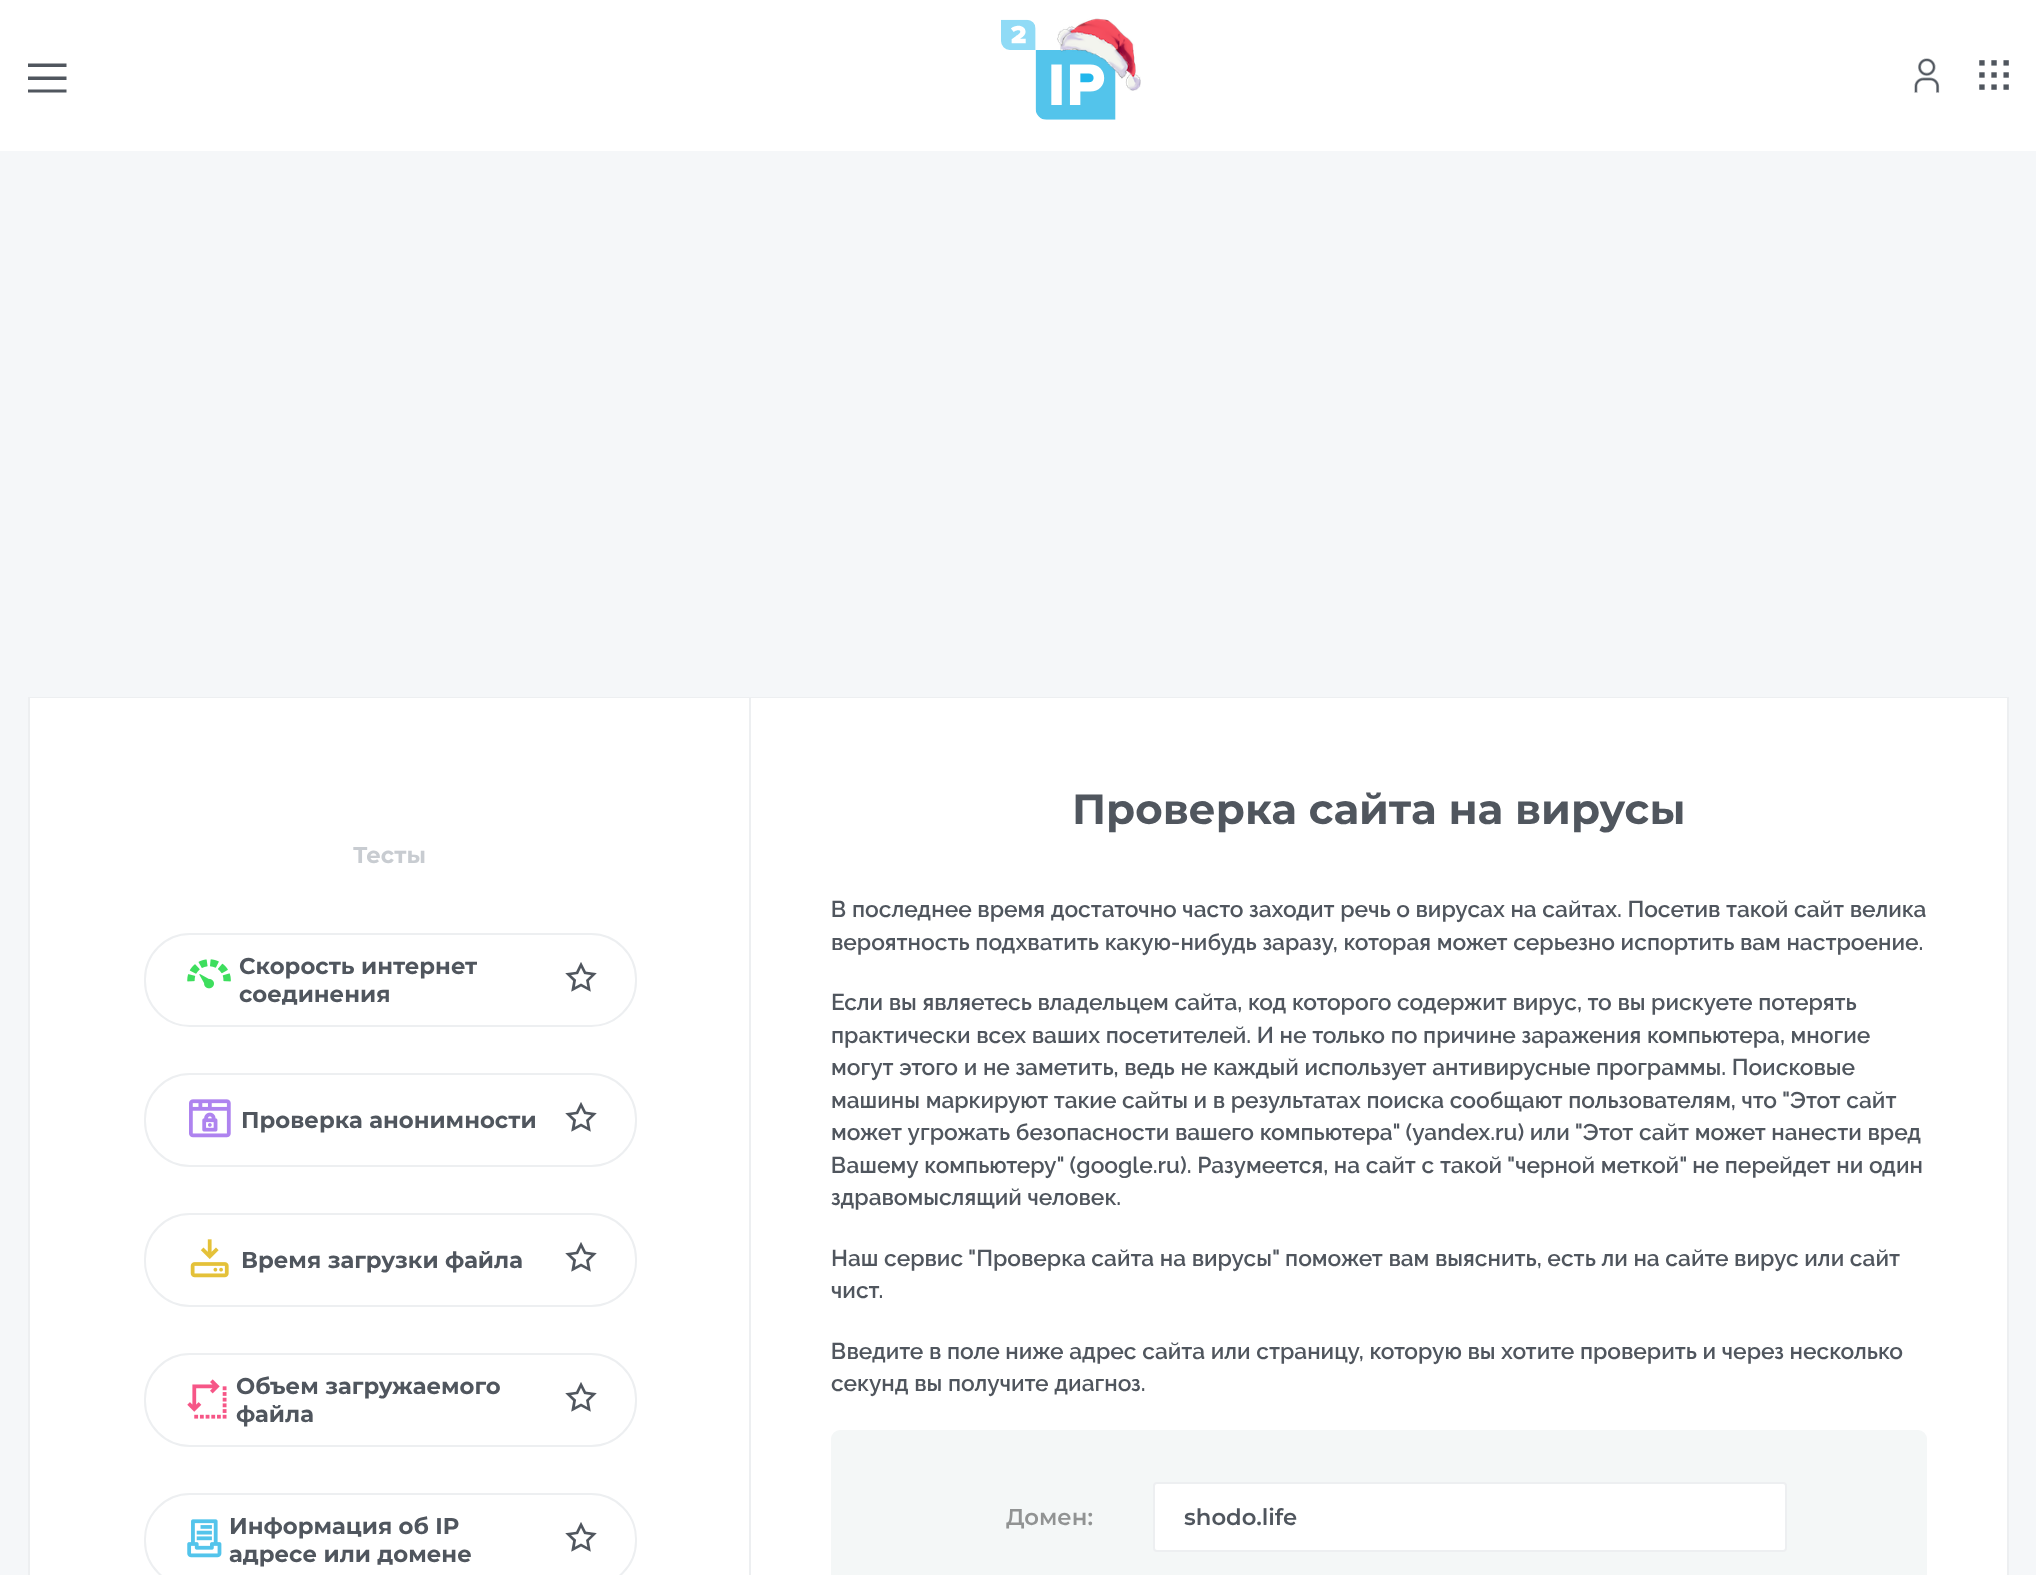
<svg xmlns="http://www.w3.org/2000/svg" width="2036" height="1575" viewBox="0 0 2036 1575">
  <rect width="100%" height="100%" fill="#f5f7f9"/>
  <path d="M0 0h2036v151H0z" fill="#fff"/>
  <path d="M28 67V63.5H66.5V67ZM28 80V76.5H66.5V80ZM28 92.5V89.5H66.5V92.5Z" fill="#50565e"/>
  <image x="1001" y="19" width="115" height="101" href="img/2.png"/>
  <image x="1057" y="18" width="84" height="73" href="img/1.png"/>
  <image x="1914" y="58" width="26" height="35" href="img/3.png"/>
  <image x="1979" y="60" width="30" height="30" href="img/4.png"/>
  <path d="M29 698h1979v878H29z" fill="none" stroke="#edeff1" stroke-width="2"/>
  <path d="M30 698h719v877H30z" fill="#fff"/>
  <path d="M749 698h2v877H749z" fill="#edeff1"/>
  <rect x="145" y="934" width="491" height="92" rx="45" fill="none" stroke="#edeff1" stroke-width="2"/>
  <image x="187" y="959" width="44" height="30" href="img/5.png"/>
  <image x="565" y="962" width="32" height="30" href="img/6.png"/>
  <rect x="145" y="1074" width="491" height="92" rx="45" fill="none" stroke="#edeff1" stroke-width="2"/>
  <image x="189" y="1099" width="42" height="39" href="img/7.png"/>
  <image x="565" y="1102" width="32" height="30" href="img/6.png"/>
  <rect x="145" y="1214" width="491" height="92" rx="45" fill="none" stroke="#edeff1" stroke-width="2"/>
  <image x="190" y="1239" width="39" height="39" href="img/8.png"/>
  <image x="565" y="1242" width="32" height="30" href="img/6.png"/>
  <rect x="145" y="1354" width="491" height="92" rx="45" fill="none" stroke="#edeff1" stroke-width="2"/>
  <image x="187" y="1379" width="40" height="40" href="img/9.png"/>
  <image x="565" y="1382" width="32" height="30" href="img/6.png"/>
  <rect x="145" y="1494" width="491" height="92" rx="45" fill="none" stroke="#edeff1" stroke-width="2"/>
  <image x="187" y="1519" width="35" height="39" href="img/10.png"/>
  <image x="565" y="1522" width="32" height="30" href="img/6.png"/>
  <path d="M751 698h1256v877H751z" fill="#fff"/>
  <rect x="831" y="1430" width="1096" height="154" rx="9" fill="#f4f7f7"/>
  <rect x="1154" y="1483" width="632" height="68" rx="3" fill="#fff" stroke="#edeff1" stroke-width="2"/>
  <text x="353" y="863" font-family="Montserrat" font-size="22.75" font-weight="bold" fill="#c8ccd1">Тесты</text>
  <g font-family="Montserrat" font-size="22.75" font-weight="bold" fill="#50565e">
    <text x="239" y="974">Скорость интернет</text>
    <text x="239" y="1002">соединения</text>
    <text x="241" y="1128">Проверка анонимности</text>
    <text x="241" y="1268">Время загрузки файла</text>
    <text x="236" y="1394">Объем загружаемого</text>
    <text x="236" y="1422">файла</text>
    <text x="229" y="1534">Информация об IP</text>
    <text x="229" y="1562">адресе или домене</text>
  </g>
  <text x="1072" y="824" font-family="Montserrat" font-size="42" font-weight="bold" fill="#50565e">Проверка сайта на вирусы</text>
  <g font-family="Raleway" font-size="22.75" font-weight="600" fill="#50565e">
    <text x="831" y="917">В последнее время достаточно часто заходит речь о вирусах на сайтах. Посетив такой сайт велика</text>
    <text x="831" y="950">вероятность подхватить какую-нибудь заразу, которая может серьезно испортить вам настроение.</text>
    <text x="831" y="1010">Если вы являетесь владельцем сайта, код которого содержит вирус, то вы рискуете потерять</text>
    <text x="831" y="1043">практически всех ваших посетителей. И не только по причине заражения компьютера, многие</text>
    <text x="831" y="1075">могут этого и не заметить, ведь не каждый использует антивирусные программы. Поисковые</text>
    <text x="831" y="1108">машины маркируют такие сайты и в результатах поиска сообщают пользователям, что "Этот сайт</text>
    <text x="831" y="1140">может угрожать безопасности вашего компьютера" (yandex.ru) или "Этот сайт может нанести вред</text>
    <text x="831" y="1173">Вашему компьютеру" (google.ru). Разумеется, на сайт с такой "черной меткой" не перейдет ни один</text>
    <text x="831" y="1205">здравомыслящий человек.</text>
    <text x="831" y="1266">Наш сервис "Проверка сайта на вирусы" поможет вам выяснить, есть ли на сайте вирус или сайт</text>
    <text x="831" y="1298">чист.</text>
    <text x="831" y="1359">Введите в поле ниже адрес сайта или страницу, которую вы хотите проверить и через несколько</text>
    <text x="831" y="1391">секунд вы получите диагноз.</text>
  </g>
  <text x="1006" y="1525" font-family="Montserrat" font-size="22.75" font-weight="600" fill="#919393">Домен:</text>
  <text x="1184" y="1525" font-family="Montserrat" font-size="22.75" font-weight="600" fill="#50565e">shodo.life</text>
</svg>
